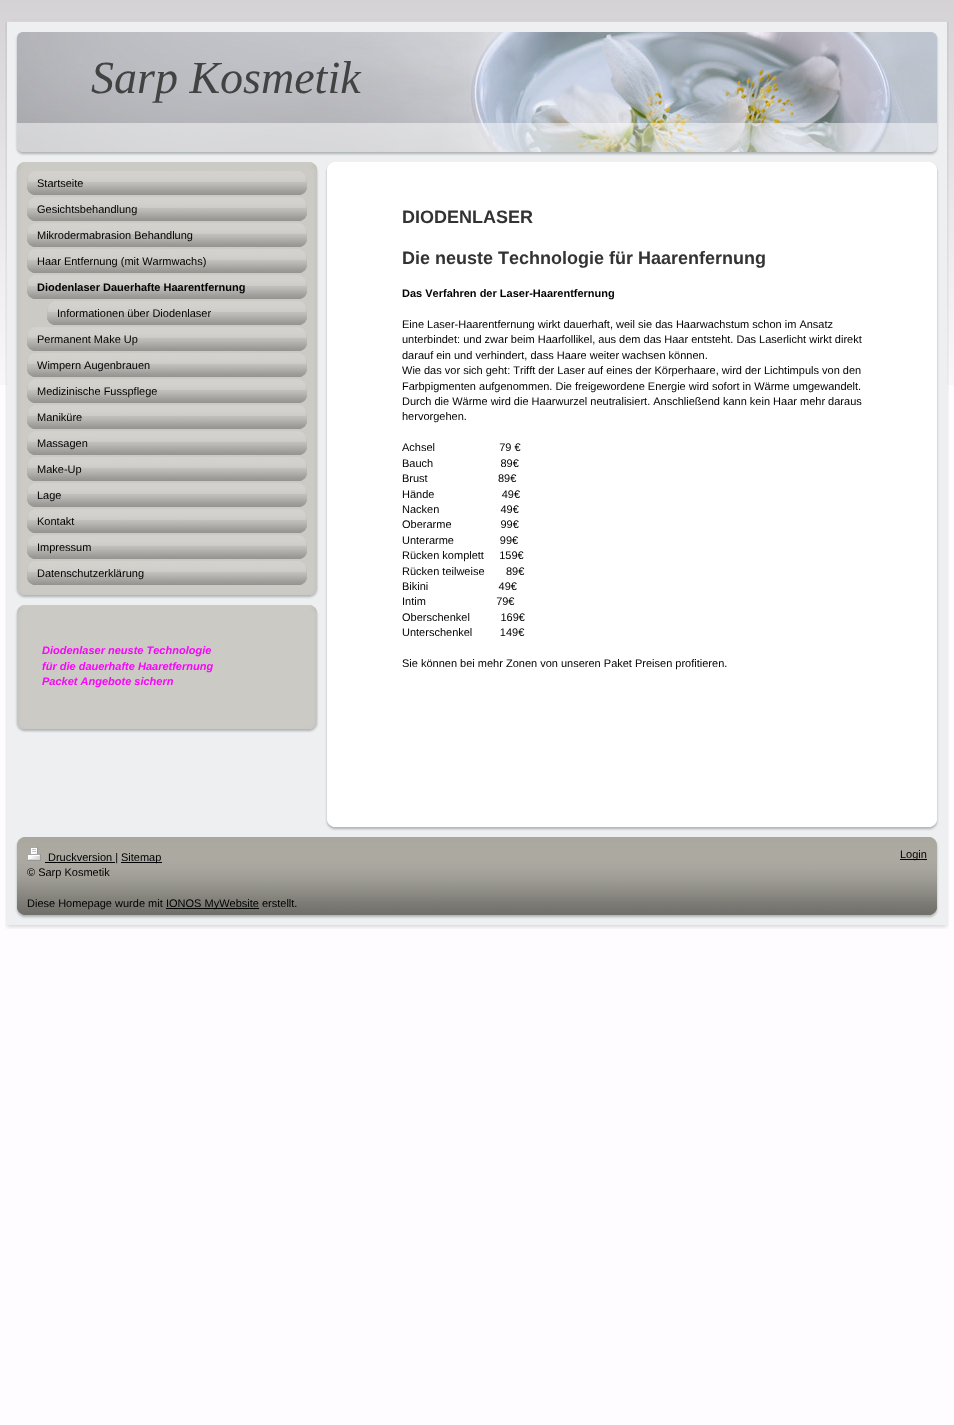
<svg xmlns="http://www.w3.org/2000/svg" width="954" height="1425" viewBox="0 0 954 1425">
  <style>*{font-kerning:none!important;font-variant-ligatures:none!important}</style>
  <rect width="100%" height="100%" fill="#fefcff"/>
  <image x="0" y="0" width="954" height="385" href="img/1.png"/>
  <path d="M11 19h932v1H11z" fill="#d2d0d3"/>
  <image x="5" y="925" width="944" height="4" href="img/2.png"/>
  <image x="5" y="22" width="944" height="903" href="img/3.png"/>
  <image x="15" y="152" width="924" height="4" href="img/4.png"/>
  <image x="17" y="32" width="920" height="120" href="img/6.png"/>
  <path d="M17 123h920v29H17z" fill="#ffffff80"/>
  <image x="7" y="32" width="15" height="120" href="img/5.png"/>
  <image x="932" y="32" width="15" height="120" href="img/7.png"/>
  <path d="M17 162h300v433H17z" fill="#aaa79e"/>
  <image x="16" y="162" width="302" height="8" href="img/8.png"/>
  <image x="15" y="170" width="304" height="419" href="img/9.png"/>
  <image x="27" y="171" width="280" height="24" href="img/10.png"/>
  <image x="27" y="197" width="280" height="24" href="img/10.png"/>
  <image x="27" y="223" width="280" height="24" href="img/10.png"/>
  <image x="27" y="249" width="280" height="24" href="img/10.png"/>
  <image x="27" y="275" width="280" height="24" href="img/10.png"/>
  <image x="47" y="301" width="260" height="24" href="img/11.png"/>
  <image x="27" y="327" width="280" height="24" href="img/10.png"/>
  <image x="27" y="353" width="280" height="24" href="img/10.png"/>
  <image x="27" y="379" width="280" height="24" href="img/10.png"/>
  <image x="27" y="405" width="280" height="24" href="img/10.png"/>
  <image x="27" y="431" width="280" height="24" href="img/10.png"/>
  <image x="27" y="457" width="280" height="24" href="img/10.png"/>
  <image x="27" y="483" width="280" height="24" href="img/10.png"/>
  <image x="27" y="509" width="280" height="24" href="img/10.png"/>
  <image x="27" y="535" width="280" height="24" href="img/10.png"/>
  <image x="27" y="561" width="280" height="24" href="img/10.png"/>
  <image x="15" y="589" width="304" height="10" href="img/12.png"/>
  <path d="M17 605h300v124H17z" fill="#aaa79e"/>
  <image x="16" y="605" width="302" height="8" href="img/8.png"/>
  <image x="15" y="613" width="304" height="110" href="img/13.png"/>
  <image x="15" y="723" width="304" height="10" href="img/12.png"/>
  <image x="326" y="162" width="612" height="8" href="img/14.png"/>
  <image x="325" y="170" width="614" height="650" href="img/15.png"/>
  <image x="325" y="820" width="614" height="11" href="img/16.png"/>
  <path d="M17 837h920v78H17z" fill="#aaa79e"/>
  <image x="15" y="837" width="924" height="82" href="img/17.png"/>
  <image x="27" y="847" width="14" height="14" href="img/18.png"/>
  <path d="M45 862h70v1H45z" fill="#000"/>
  <path d="M121 862h41v1H121z" fill="#000"/>
  <path d="M166 908h93v1H166z" fill="#000"/>
  <path d="M900 859h27v1H900z" fill="#000"/>
  <text x="91" y="93" font-family="Liberation Serif" font-size="46" font-style="italic" fill="#424242">Sarp Kosmetik</text>
  <g font-family="Liberation Sans" font-size="11" fill="#000">
    <text x="37" y="187">Startseite</text>
    <text x="37" y="213">Gesichtsbehandlung</text>
    <text x="37" y="239">Mikrodermabrasion Behandlung</text>
    <text x="37" y="265">Haar Entfernung (mit Warmwachs)</text>
  </g>
  <text x="37" y="291" font-family="Liberation Sans" font-size="11" font-weight="bold" fill="#000">Diodenlaser Dauerhafte Haarentfernung</text>
  <g font-family="Liberation Sans" font-size="11" fill="#000">
    <text x="57" y="317">Informationen über Diodenlaser</text>
    <text x="37" y="343">Permanent Make Up</text>
    <text x="37" y="369">Wimpern Augenbrauen</text>
    <text x="37" y="395">Medizinische Fusspflege</text>
    <text x="37" y="421">Maniküre</text>
    <text x="37" y="447">Massagen</text>
    <text x="37" y="473">Make-Up</text>
    <text x="37" y="499">Lage</text>
    <text x="37" y="525">Kontakt</text>
    <text x="37" y="551">Impressum</text>
    <text x="37" y="577">Datenschutzerklärung</text>
  </g>
  <g font-family="Liberation Sans" font-size="11" font-weight="bold" font-style="italic" fill="#f905fb">
    <text x="42" y="654">Diodenlaser neuste Technologie</text>
    <text x="42" y="670">für die dauerhafte Haaretfernung</text>
    <text x="42" y="685">Packet Angebote sichern</text>
  </g>
  <g font-family="Liberation Sans" font-size="18" font-weight="bold" fill="#333">
    <text x="402" y="223">DIODENLASER</text>
    <text x="402" y="264">Die neuste Technologie für Haarenfernung</text>
  </g>
  <text x="402" y="297" font-family="Liberation Sans" font-size="11" font-weight="bold" fill="#000">Das Verfahren der Laser-Haarentfernung</text>
  <g font-family="Liberation Sans" font-size="11" fill="#000">
    <text x="402" y="328">Eine Laser-Haarentfernung wirkt dauerhaft, weil sie das Haarwachstum schon im Ansatz</text>
    <text x="402" y="343">unterbindet: und zwar beim Haarfollikel, aus dem das Haar entsteht. Das Laserlicht wirkt direkt</text>
    <text x="402" y="359">darauf ein und verhindert, dass Haare weiter wachsen können.</text>
    <text x="402" y="374">Wie das vor sich geht: Trifft der Laser auf eines der Körperhaare, wird der Lichtimpuls von den</text>
    <text x="402" y="390">Farbpigmenten aufgenommen. Die freigewordene Energie wird sofort in Wärme umgewandelt.</text>
    <text x="402" y="405">Durch die Wärme wird die Haarwurzel neutralisiert. Anschließend kann kein Haar mehr daraus</text>
    <text x="402" y="420">hervorgehen.</text>
    <text x="402" y="451" xml:space="preserve">Achsel                     79 €</text>
    <text x="402" y="467" xml:space="preserve">Bauch                      89€</text>
    <text x="402" y="482" xml:space="preserve">Brust                       89€</text>
    <text x="402" y="498" xml:space="preserve">Hände                      49€</text>
    <text x="402" y="513" xml:space="preserve">Nacken                    49€</text>
    <text x="402" y="528" xml:space="preserve">Oberarme                99€</text>
    <text x="402" y="544" xml:space="preserve">Unterarme               99€</text>
    <text x="402" y="559" xml:space="preserve">Rücken komplett     159€</text>
    <text x="402" y="575" xml:space="preserve">Rücken teilweise       89€</text>
    <text x="402" y="590" xml:space="preserve">Bikini                       49€</text>
    <text x="402" y="605" xml:space="preserve">Intim                       79€</text>
    <text x="402" y="621" xml:space="preserve">Oberschenkel          169€</text>
    <text x="402" y="636" xml:space="preserve">Unterschenkel         149€</text>
    <text x="402" y="667">Sie können bei mehr Zonen von unseren Paket Preisen profitieren.</text>
    <text x="48" y="861">Druckversion |</text>
    <text x="121" y="861">Sitemap</text>
    <text x="27" y="876">© Sarp Kosmetik</text>
    <text x="27" y="907">Diese Homepage wurde mit</text>
    <text x="166" y="907">IONOS MyWebsite erstellt.</text>
    <text x="900" y="858">Login</text>
  </g>
</svg>
